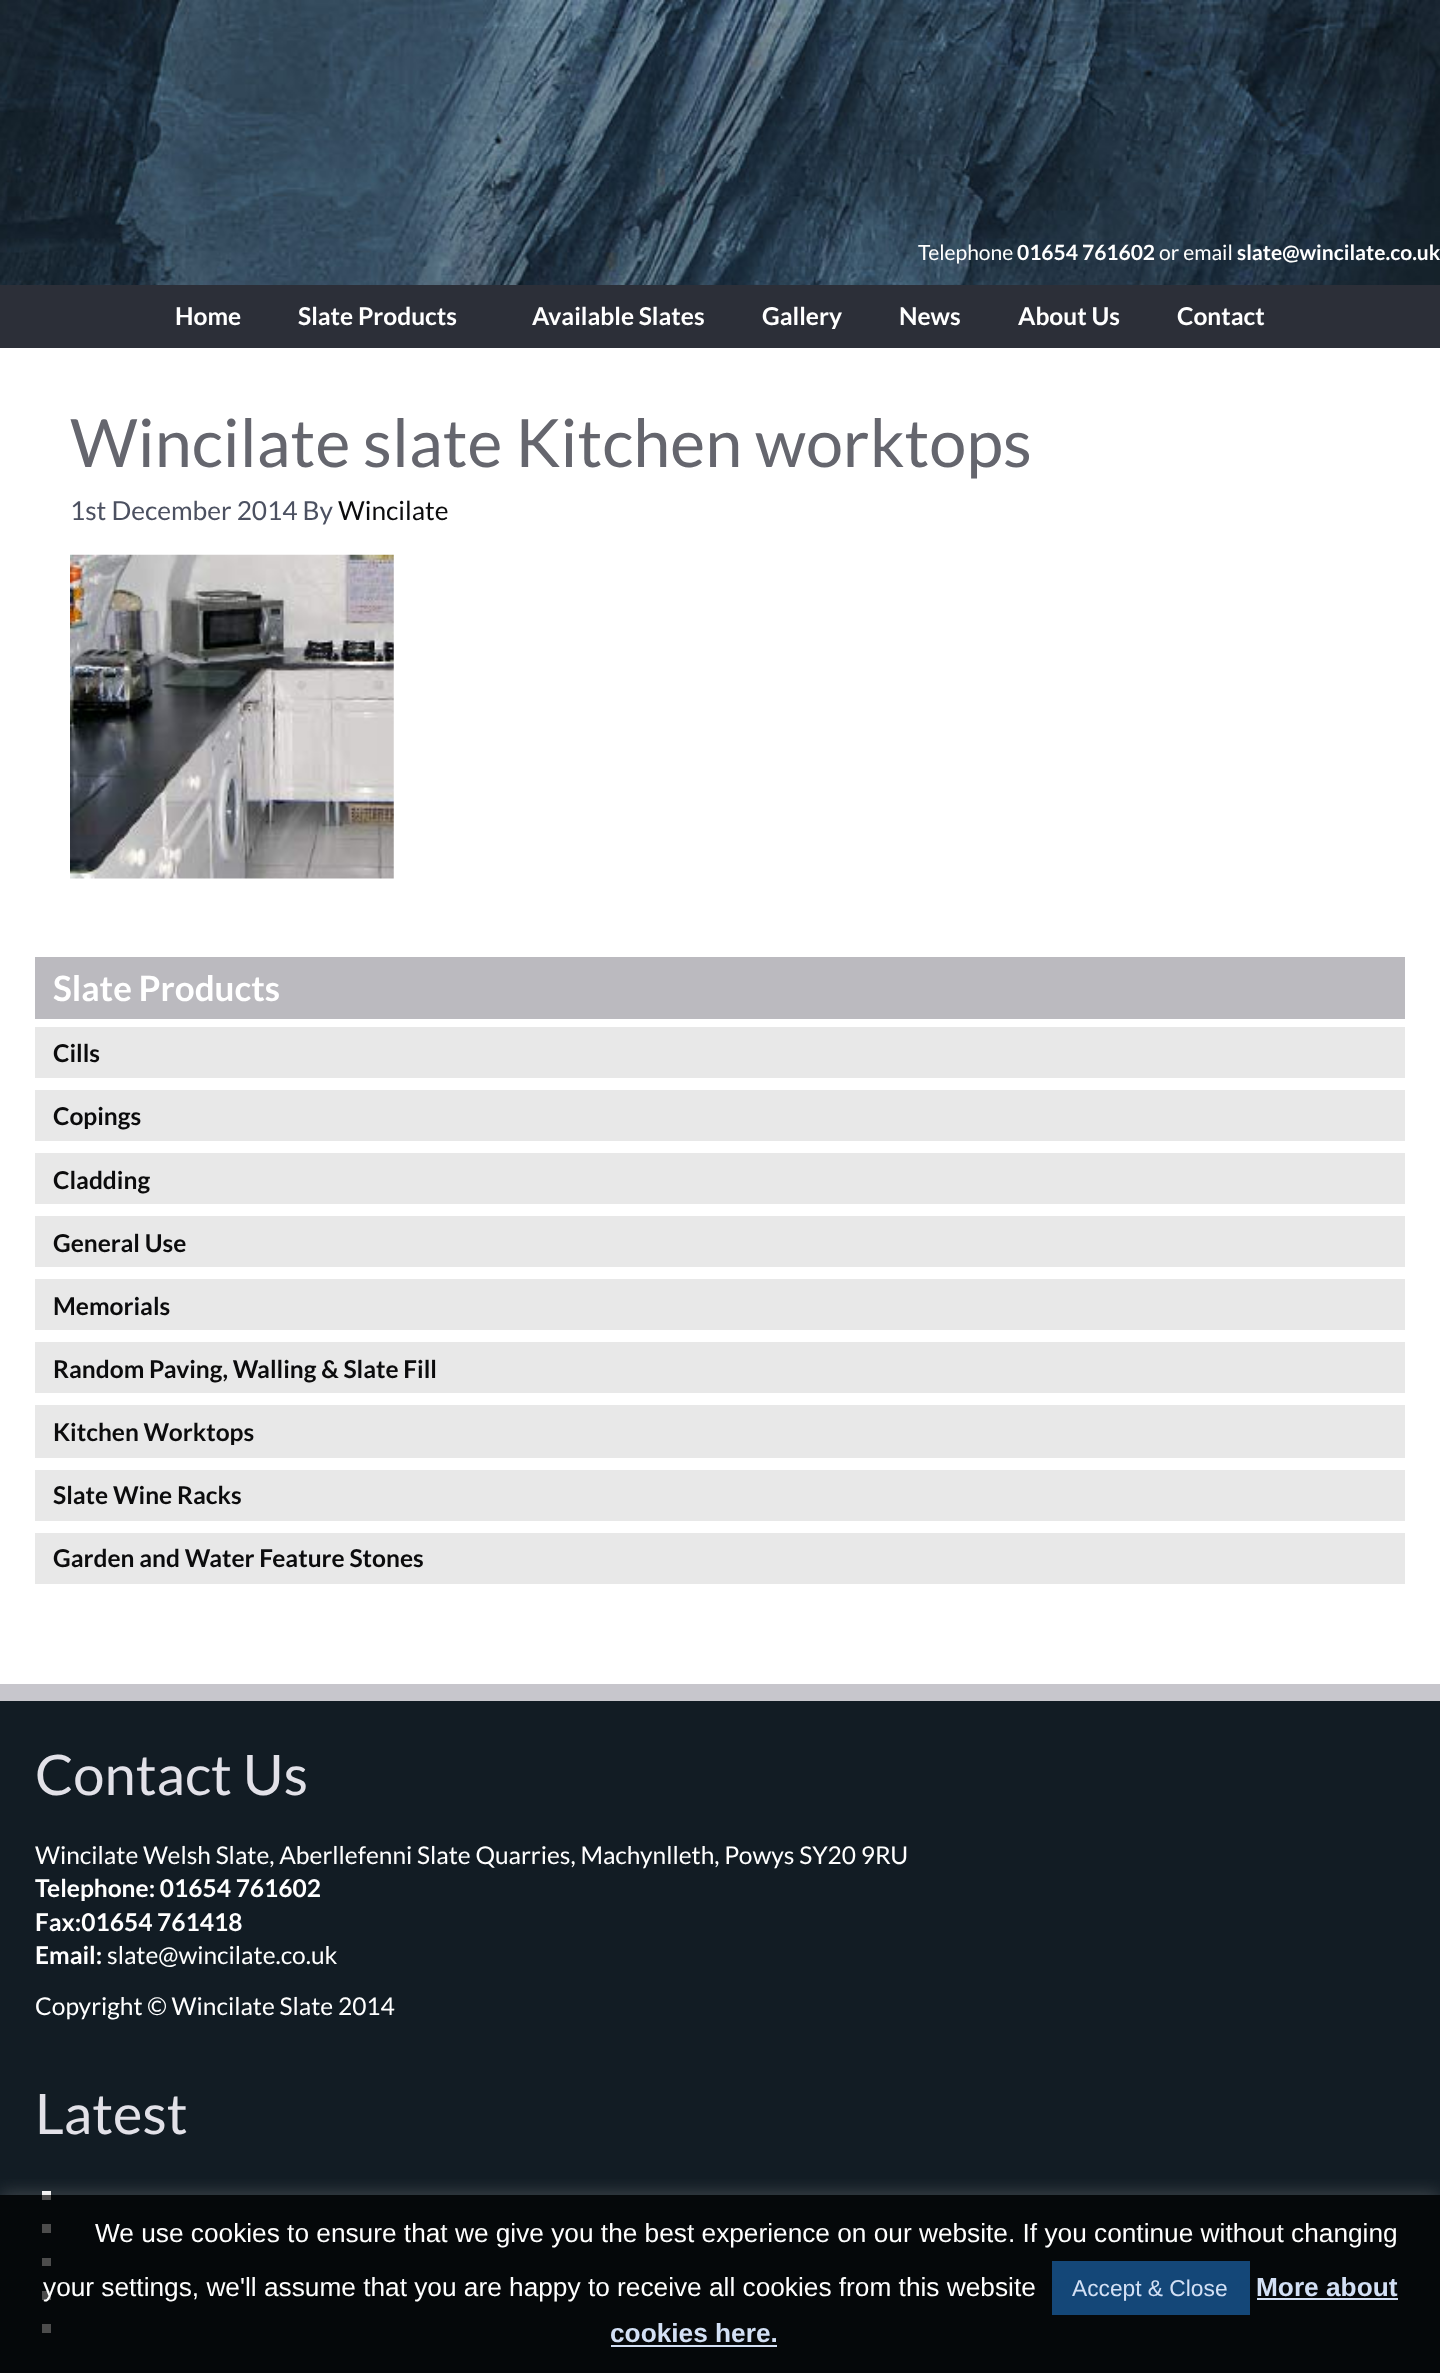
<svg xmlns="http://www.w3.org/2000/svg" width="1440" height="2373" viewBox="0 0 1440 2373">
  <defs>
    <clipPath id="clip1"><path d="M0 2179h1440v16H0z"/></clipPath>
  </defs>
  <rect width="100%" height="100%" fill="#fff"/>
  <image x="0" y="0" width="1440" height="285" href="img/1.png"/>
  <path d="M0 285h1440v63H0z" fill="#2c2f38"/>
  <image x="70" y="554" width="324" height="325" href="img/2.png"/>
  <path d="M35 957h1370v62H35z" fill="#bbbabf"/>
  <path d="M35 1027h1370v51H35z" fill="#e8e8e8"/>
  <path d="M35 1090h1370v51H35z" fill="#e8e8e8"/>
  <path d="M35 1153h1370v51H35z" fill="#e8e8e8"/>
  <path d="M35 1216h1370v51H35z" fill="#e8e8e8"/>
  <path d="M35 1279h1370v51H35z" fill="#e8e8e8"/>
  <path d="M35 1342h1370v51H35z" fill="#e8e8e8"/>
  <path d="M35 1405h1370v53H35z" fill="#e8e8e8"/>
  <path d="M35 1470h1370v51H35z" fill="#e8e8e8"/>
  <path d="M35 1533h1370v51H35z" fill="#e8e8e8"/>
  <path d="M0 1701h1440v672H0z" fill="#121c24"/>
  <path d="M0 1684h1440v17H0z" fill="#c7c6cc"/>
  <path d="M42 2191h9v9H42z" fill="#fff"/>
  <path d="M42 2224h9v9H42z" fill="#fff"/>
  <path d="M42 2258h9v8H42z" fill="#fff"/>
  <path d="M42 2291h9v9H42z" fill="#fff"/>
  <path d="M42 2324h9v9H42z" fill="#fff"/>
  <g clip-path="url(#clip1)">
    <path d="M0 2193h1440v178H0z" fill="#acabab4d" filter="blur(9px)"/>
  </g>
  <path d="M0 2195h1440v178H0z" fill="#000000b3"/>
  <path d="M1052 2261h198v54H1052z" fill="#144778"/>
  <path d="M1257 2298h141v2H1257z" fill="#d3e0f5"/>
  <path d="M611 2345h166v2H611z" fill="#d3e0f5"/>
  <text x="918" y="260" font-family="Lato" font-size="21" fill="#fff">Telephone</text>
  <text x="1017" y="260" font-family="Lato" font-size="21" font-weight="bold" fill="#fff">01654 761602</text>
  <text x="1159" y="260" font-family="Lato" font-size="21" fill="#fff">or email</text>
  <text x="1237" y="260" font-family="Lato" font-size="21" font-weight="bold" fill="#fff">slate@wincilate.co.uk</text>
  <g font-family="Lato" font-size="24.5" font-weight="bold" fill="#fff">
    <text x="175" y="325">Home</text>
    <text x="298" y="325">Slate Products</text>
    <text x="532" y="325">Available Slates</text>
    <text x="762" y="325">Gallery</text>
    <text x="899" y="325">News</text>
    <text x="1018" y="325">About Us</text>
    <text x="1177" y="325">Contact</text>
  </g>
  <text x="70" y="467" font-family="Lato" font-size="66.5" fill="#65666e">Wincilate slate Kitchen worktops</text>
  <text x="70" y="520" font-family="Lato" font-size="26.25" fill="#4c5161">1st December 2014 By</text>
  <text x="338" y="520" font-family="Lato" font-size="26.25" fill="#0c0c0d">Wincilate</text>
  <text x="53" y="1001" font-family="Lato" font-size="35" font-weight="bold" fill="#fff">Slate Products</text>
  <g font-family="Lato" font-size="24.5" font-weight="bold" fill="#0c0c0d">
    <text x="53" y="1062">Cills</text>
    <text x="53" y="1125">Copings</text>
    <text x="53" y="1189">Cladding</text>
    <text x="53" y="1252">General Use</text>
    <text x="53" y="1315">Memorials</text>
    <text x="53" y="1378">Random Paving, Walling &amp; Slate Fill</text>
    <text x="53" y="1441">Kitchen Worktops</text>
    <text x="53" y="1504">Slate Wine Racks</text>
    <text x="53" y="1567">Garden and Water Feature Stones</text>
  </g>
  <text x="35" y="1795" font-family="Lato" font-size="56" fill="#e2e1e8">Contact Us</text>
  <text x="35" y="1864" font-family="Lato" font-size="24.5" fill="#fff">Wincilate Welsh Slate, Aberllefenni Slate Quarries, Machynlleth, Powys SY20 9RU</text>
  <g font-family="Lato" font-size="24.5" font-weight="bold" fill="#fff">
    <text x="35" y="1897">Telephone: 01654 761602</text>
    <text x="35" y="1931">Fax:01654 761418</text>
    <text x="35" y="1964">Email:</text>
  </g>
  <g font-family="Lato" font-size="24.5" fill="#fff">
    <text x="107" y="1964">slate@wincilate.co.uk</text>
    <text x="35" y="2015">Copyright © Wincilate Slate 2014</text>
  </g>
  <text x="35" y="2134" font-family="Lato" font-size="56" fill="#e2e1e8">Latest</text>
  <g font-family="Liberation Sans" font-size="26.25" fill="#fff">
    <text x="95" y="2242">We use cookies to ensure that we give you the best experience on our website. If you continue without changing</text>
    <text x="43" y="2296">your settings, we'll assume that you are happy to receive all cookies from this website</text>
  </g>
  <text x="1072" y="2296" font-family="Liberation Sans" font-size="22.75" fill="#d3e0f5">Accept &amp; Close</text>
  <g font-family="Liberation Sans" font-size="26.25" font-weight="bold" fill="#d3e0f5">
    <text x="1256" y="2296">More about</text>
    <text x="610" y="2342">cookies here.</text>
  </g>
</svg>
